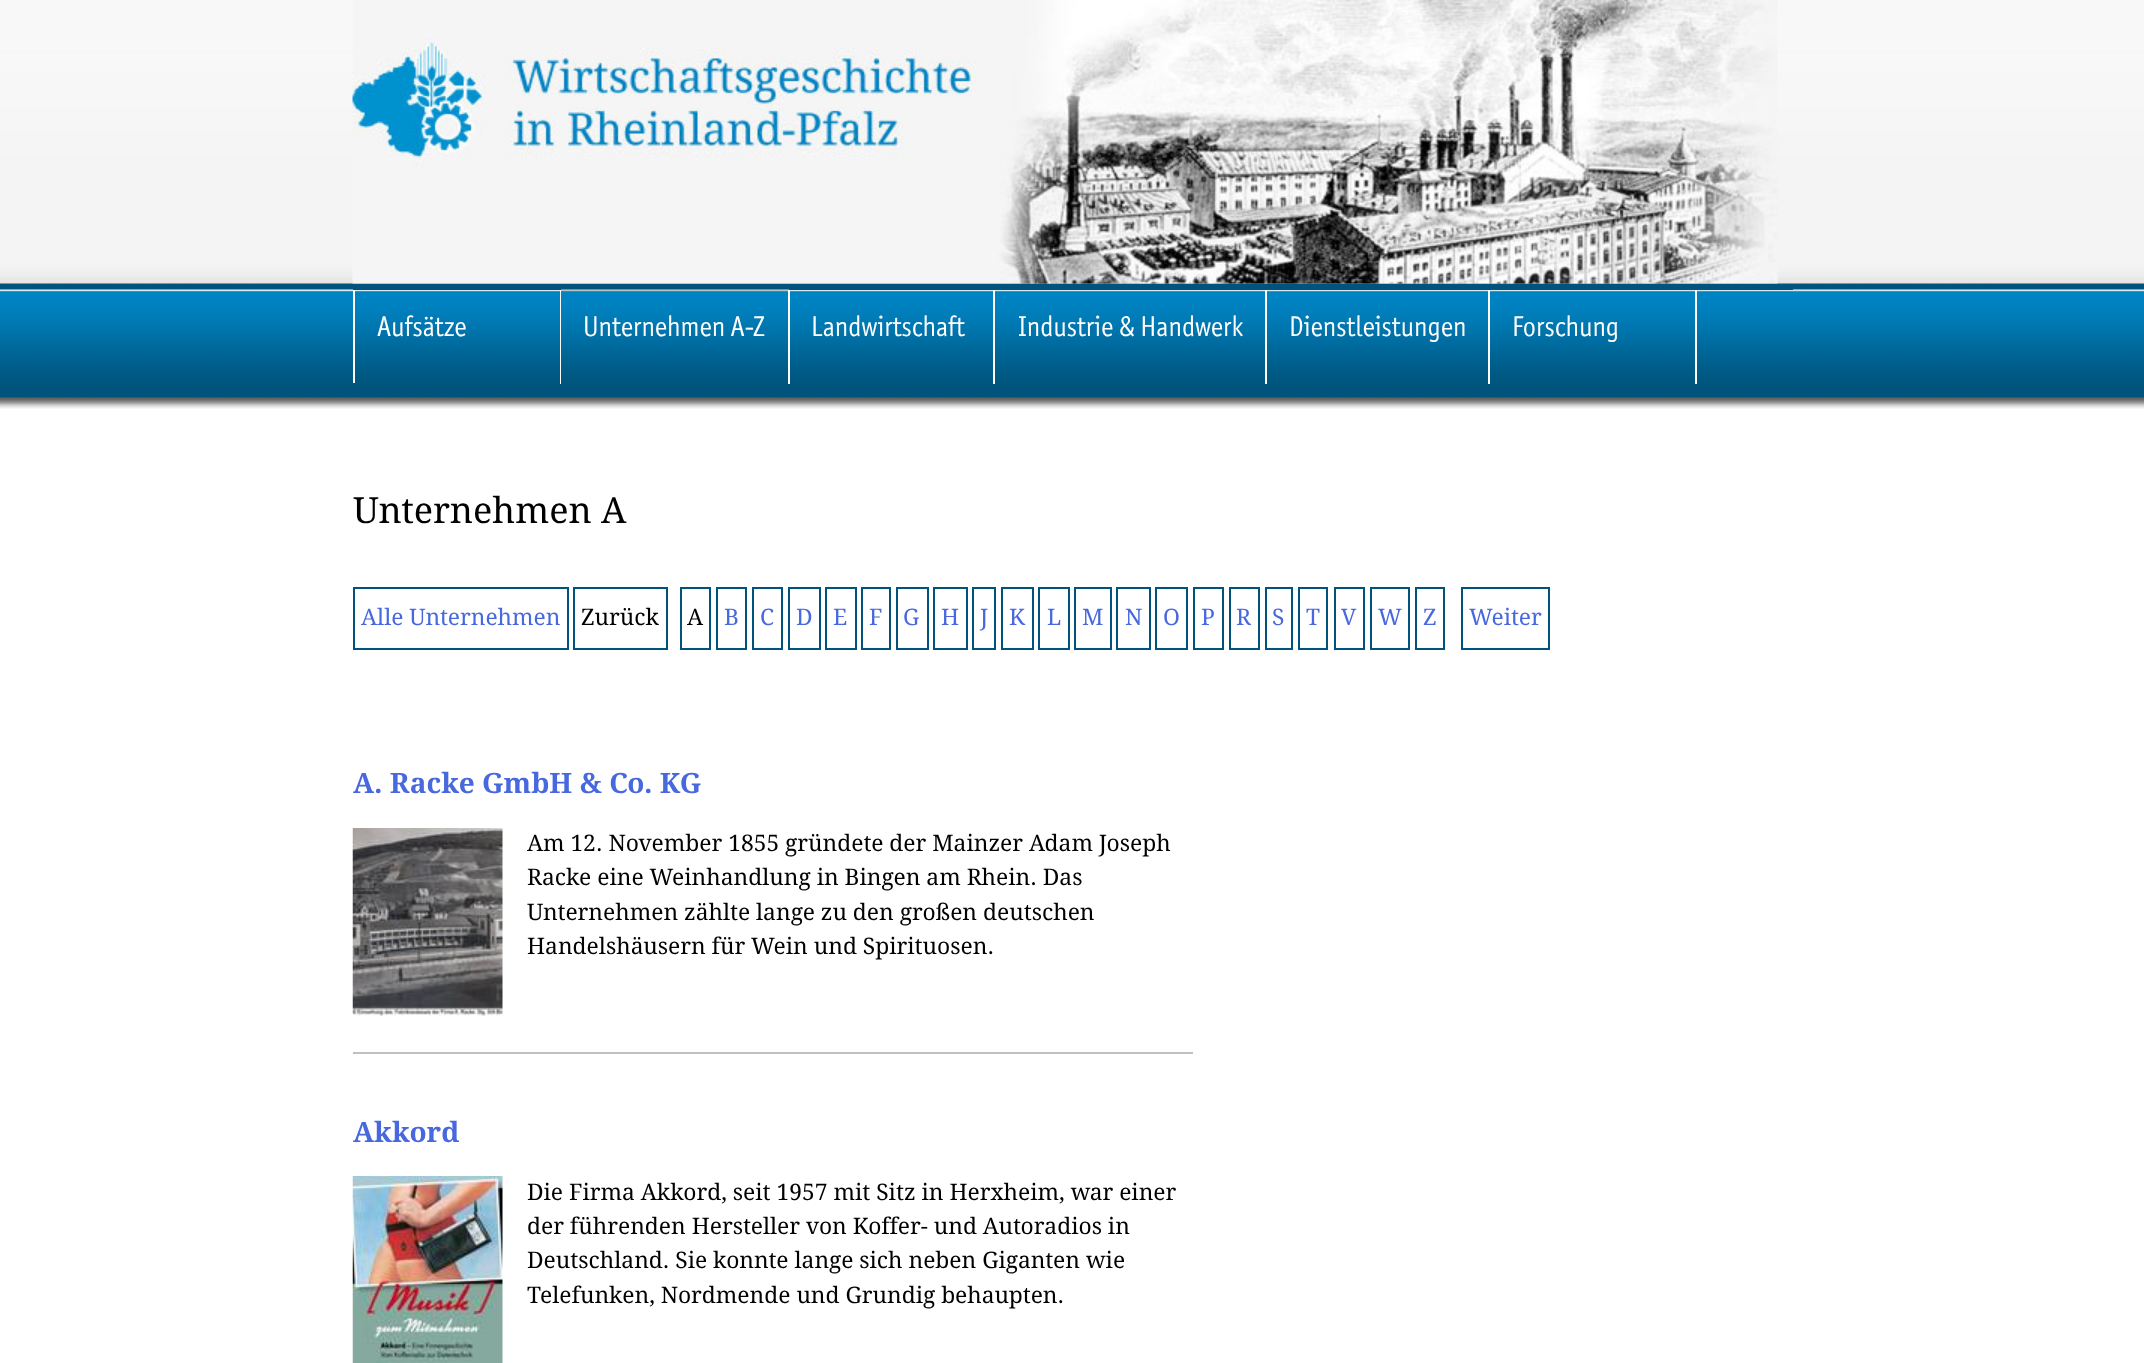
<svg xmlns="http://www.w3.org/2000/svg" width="2144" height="1363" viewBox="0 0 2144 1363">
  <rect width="100%" height="100%" fill="#fff"/>
  <image x="0" y="0" width="2144" height="409" href="img/1.png"/>
  <image x="352" y="0" width="1426" height="284" href="img/2.png"/>
  <path d="M353 289h1440v1H353z" fill="#00537c"/>
  <path d="M353 290h2v93H353z" fill="#fff"/>
  <path d="M560 290h1v94H560z" fill="#fff"/>
  <image x="561" y="289" width="228" height="95" href="img/3.png"/>
  <path d="M788 290h2v94H788z" fill="#fff"/>
  <path d="M993 290h2v94H993z" fill="#fff"/>
  <path d="M1265 290h2v94H1265z" fill="#fff"/>
  <path d="M1488 290h2v94H1488z" fill="#fff"/>
  <path d="M1695 290h2v94H1695z" fill="#fff"/>
  <path d="M354 588h214v61H354z" fill="none" stroke="#00537c" stroke-width="2"/>
  <path d="M574 588h93v61H574z" fill="none" stroke="#00537c" stroke-width="2"/>
  <path d="M681 588h29v61H681z" fill="none" stroke="#00537c" stroke-width="2"/>
  <path d="M717 588h29v61H717z" fill="none" stroke="#00537c" stroke-width="2"/>
  <path d="M753 588h29v61H753z" fill="none" stroke="#00537c" stroke-width="2"/>
  <path d="M789 588h31v61H789z" fill="none" stroke="#00537c" stroke-width="2"/>
  <path d="M826 588h30v61H826z" fill="none" stroke="#00537c" stroke-width="2"/>
  <path d="M862 588h28v61H862z" fill="none" stroke="#00537c" stroke-width="2"/>
  <path d="M897 588h31v61H897z" fill="none" stroke="#00537c" stroke-width="2"/>
  <path d="M934 588h33v61H934z" fill="none" stroke="#00537c" stroke-width="2"/>
  <path d="M973 588h22v61H973z" fill="none" stroke="#00537c" stroke-width="2"/>
  <path d="M1002 588h31v61H1002z" fill="none" stroke="#00537c" stroke-width="2"/>
  <path d="M1039 588h30v61H1039z" fill="none" stroke="#00537c" stroke-width="2"/>
  <path d="M1075 588h36v61H1075z" fill="none" stroke="#00537c" stroke-width="2"/>
  <path d="M1117 588h33v61H1117z" fill="none" stroke="#00537c" stroke-width="2"/>
  <path d="M1156 588h31v61H1156z" fill="none" stroke="#00537c" stroke-width="2"/>
  <path d="M1194 588h29v61H1194z" fill="none" stroke="#00537c" stroke-width="2"/>
  <path d="M1230 588h29v61H1230z" fill="none" stroke="#00537c" stroke-width="2"/>
  <path d="M1266 588h26v61H1266z" fill="none" stroke="#00537c" stroke-width="2"/>
  <path d="M1299 588h28v61H1299z" fill="none" stroke="#00537c" stroke-width="2"/>
  <path d="M1335 588h29v61H1335z" fill="none" stroke="#00537c" stroke-width="2"/>
  <path d="M1371 588h38v61H1371z" fill="none" stroke="#00537c" stroke-width="2"/>
  <path d="M1416 588h28v61H1416z" fill="none" stroke="#00537c" stroke-width="2"/>
  <path d="M1462 588h87v61H1462z" fill="none" stroke="#00537c" stroke-width="2"/>
  <path d="M353 1052h840v2H353z" fill="#c0c0c0"/>
  <image x="352" y="828" width="151" height="188" href="img/4.png"/>
  <image x="352" y="1176" width="151" height="187" href="img/5.png"/>
  <g font-family="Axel" font-size="27.75" fill="#fff">
    <text x="377" y="336">Aufsätze</text>
    <text x="583" y="336">Unternehmen A-Z</text>
    <text x="811" y="336">Landwirtschaft</text>
    <text x="1018" y="336">Industrie &amp; Handwerk</text>
    <text x="1289" y="336">Dienstleistungen</text>
    <text x="1512" y="336">Forschung</text>
  </g>
  <text x="353" y="523" font-family="Droid Serif" font-size="36" fill="#000">Unternehmen A</text>
  <text x="361" y="625" font-family="Droid Serif" font-size="22.8" fill="#4868de">Alle Unternehmen</text>
  <g font-family="Droid Serif" font-size="22.8" fill="#000">
    <text x="581" y="625">Zurück</text>
    <text x="687" y="625">A</text>
  </g>
  <g font-family="Droid Serif" font-size="22.8" fill="#4868de">
    <text x="724" y="625">B</text>
    <text x="760" y="625">C</text>
    <text x="796" y="625">D</text>
    <text x="833" y="625">E</text>
    <text x="869" y="625">F</text>
    <text x="903" y="625">G</text>
    <text x="941" y="625">H</text>
    <text x="980" y="625">J</text>
    <text x="1009" y="625">K</text>
    <text x="1047" y="625">L</text>
    <text x="1082" y="625">M</text>
    <text x="1125" y="625">N</text>
    <text x="1163" y="625">O</text>
    <text x="1201" y="625">P</text>
    <text x="1236" y="625">R</text>
    <text x="1272" y="625">S</text>
    <text x="1306" y="625">T</text>
    <text x="1341" y="625">V</text>
    <text x="1378" y="625">W</text>
    <text x="1423" y="625">Z</text>
    <text x="1469" y="625">Weiter</text>
  </g>
  <text x="353" y="793" font-family="Droid Serif" font-size="28" font-weight="bold" fill="#4868de">A. Racke GmbH &amp; Co. KG</text>
  <g font-family="Droid Serif" font-size="22.8" fill="#000">
    <text x="527" y="851">Am 12. November 1855 gründete der Mainzer Adam Joseph</text>
    <text x="527" y="885">Racke eine Weinhandlung in Bingen am Rhein. Das</text>
    <text x="527" y="920">Unternehmen zählte lange zu den großen deutschen</text>
    <text x="527" y="954">Handelshäusern für Wein und Spirituosen.</text>
  </g>
  <text x="353" y="1142" font-family="Droid Serif" font-size="28" font-weight="bold" fill="#4868de">Akkord</text>
  <g font-family="Droid Serif" font-size="22.8" fill="#000">
    <text x="527" y="1200">Die Firma Akkord, seit 1957 mit Sitz in Herxheim, war einer</text>
    <text x="527" y="1234">der führenden Hersteller von Koffer- und Autoradios in</text>
    <text x="527" y="1268">Deutschland. Sie konnte lange sich neben Giganten wie</text>
    <text x="527" y="1303">Telefunken, Nordmende und Grundig behaupten.</text>
  </g>
</svg>
